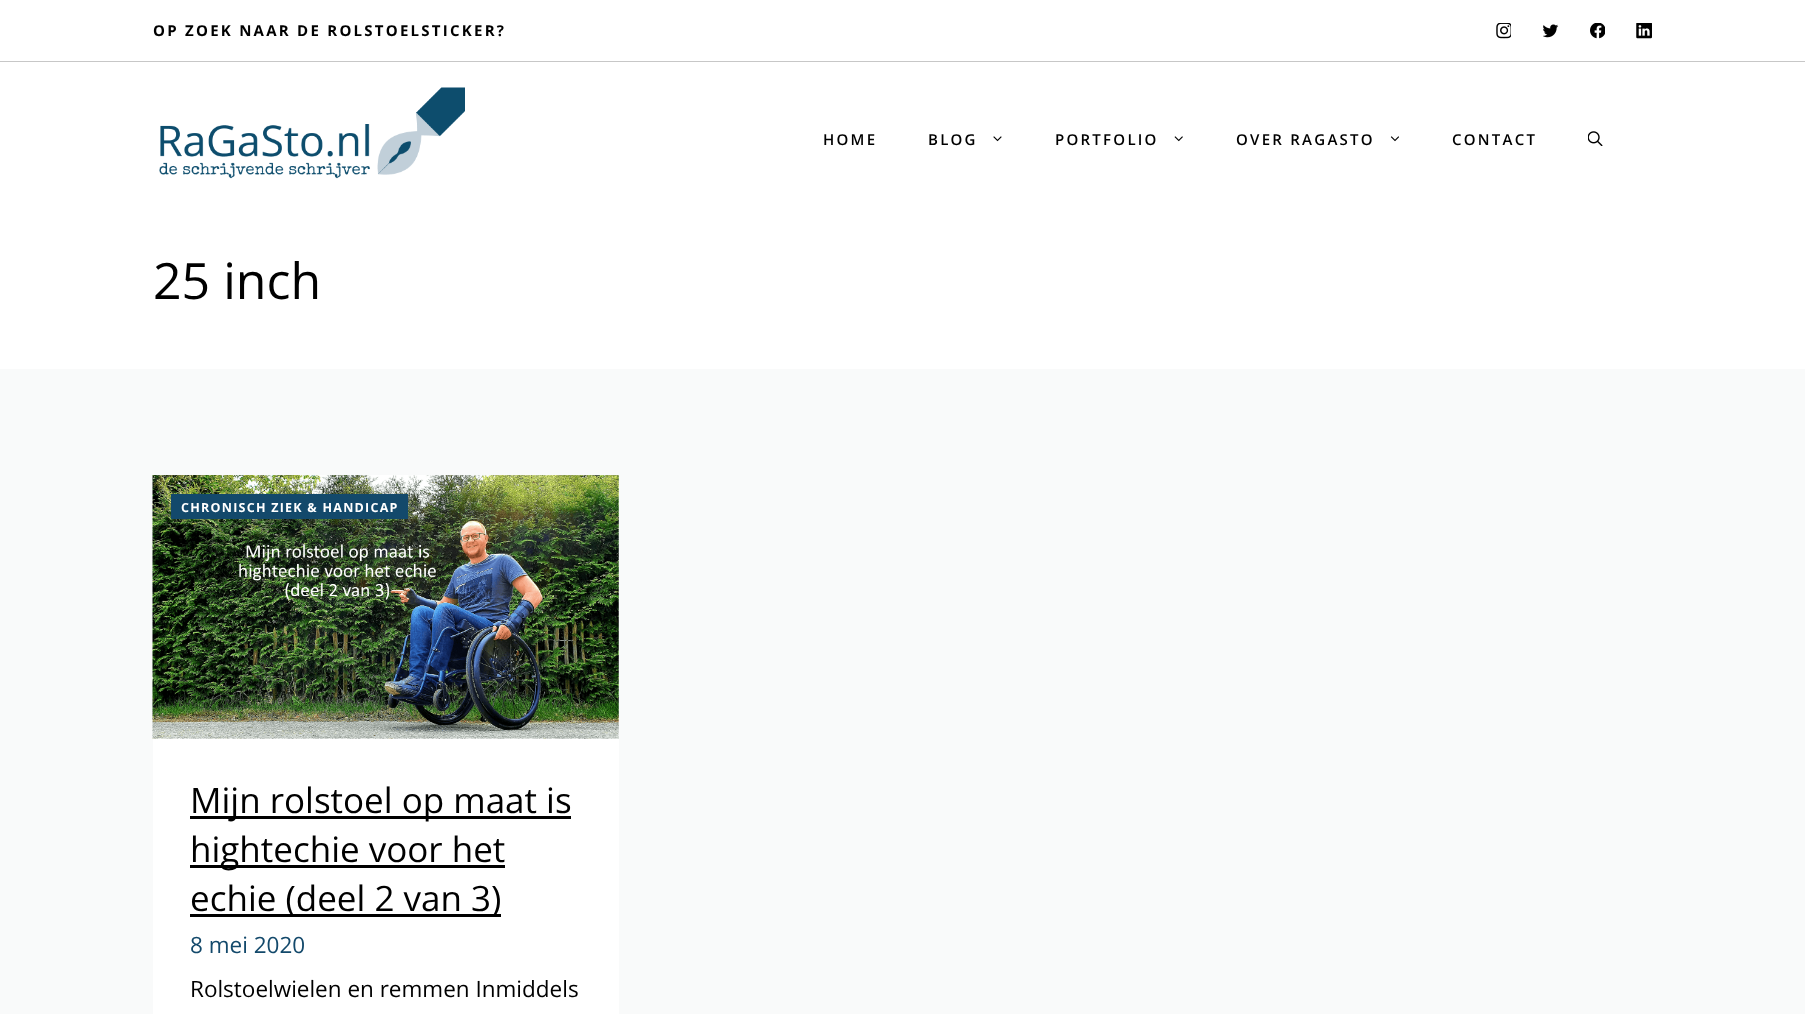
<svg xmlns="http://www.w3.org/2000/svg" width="1805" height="1014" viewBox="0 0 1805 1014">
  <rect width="100%" height="100%" fill="#f9fafa"/>
  <path d="M0 0h1805v63H0z" fill="#fff"/>
  <path d="M0 61h1805v1H0z" fill="#c7c7c7"/>
  <image x="1496" y="23" width="15" height="16" href="img/1.png"/>
  <image x="1543" y="24" width="16" height="14" href="img/2.png"/>
  <image x="1590" y="23" width="15" height="16" href="img/3.png"/>
  <image x="1636" y="23" width="16" height="16" href="img/4.png"/>
  <path d="M0 63h1805v306H0z" fill="#fff"/>
  <image x="159" y="87" width="306" height="92" href="img/5.png"/>
  <image x="993" y="136" width="9" height="6" href="img/6.png"/>
  <image x="1174" y="136" width="9" height="6" href="img/7.png"/>
  <image x="1390" y="136" width="9" height="6" href="img/8.png"/>
  <image x="1588" y="131" width="15" height="15" href="img/9.png"/>
  <image x="152" y="475" width="467" height="264" href="img/10.png"/>
  <path d="M171 494h237v25H171z" fill="#13496b"/>
  <path d="M153 739h466v275H153z" fill="#fff"/>
  <path d="M190 816h381v3H190z" fill="#000"/>
  <path d="M190 865h315v3H190z" fill="#000"/>
  <path d="M190 914h311v3H190z" fill="#000"/>
  <text x="153" y="36" font-family="Open Sans" font-size="15" font-weight="bold" letter-spacing="2.25" fill="#000">OP ZOEK NAAR DE ROLSTOELSTICKER?</text>
  <g font-family="Open Sans" font-size="15" font-weight="600" letter-spacing="2.25" fill="#000">
    <text x="823" y="145">HOME</text>
    <text x="928" y="145">BLOG</text>
    <text x="1055" y="145">PORTFOLIO</text>
    <text x="1236" y="145">OVER RAGASTO</text>
    <text x="1452" y="145">CONTACT</text>
  </g>
  <text x="153" y="299" font-family="Open Sans" font-size="50" fill="#000">25 inch</text>
  <text x="181" y="512" font-family="Open Sans" font-size="12.5" font-weight="bold" letter-spacing="1.25" fill="#fff">CHRONISCH ZIEK &amp; HANDICAP</text>
  <g font-family="Open Sans" font-size="35" fill="#000">
    <text x="190" y="813">Mijn rolstoel op maat is</text>
    <text x="190" y="862">hightechie voor het</text>
    <text x="190" y="911">echie (deel 2 van 3)</text>
  </g>
  <text x="190" y="953" font-family="Open Sans" font-size="22.5" fill="#13496b">8 mei 2020</text>
  <text x="190" y="997" font-family="Open Sans" font-size="22.5" fill="#000">Rolstoelwielen en remmen Inmiddels</text>
</svg>
